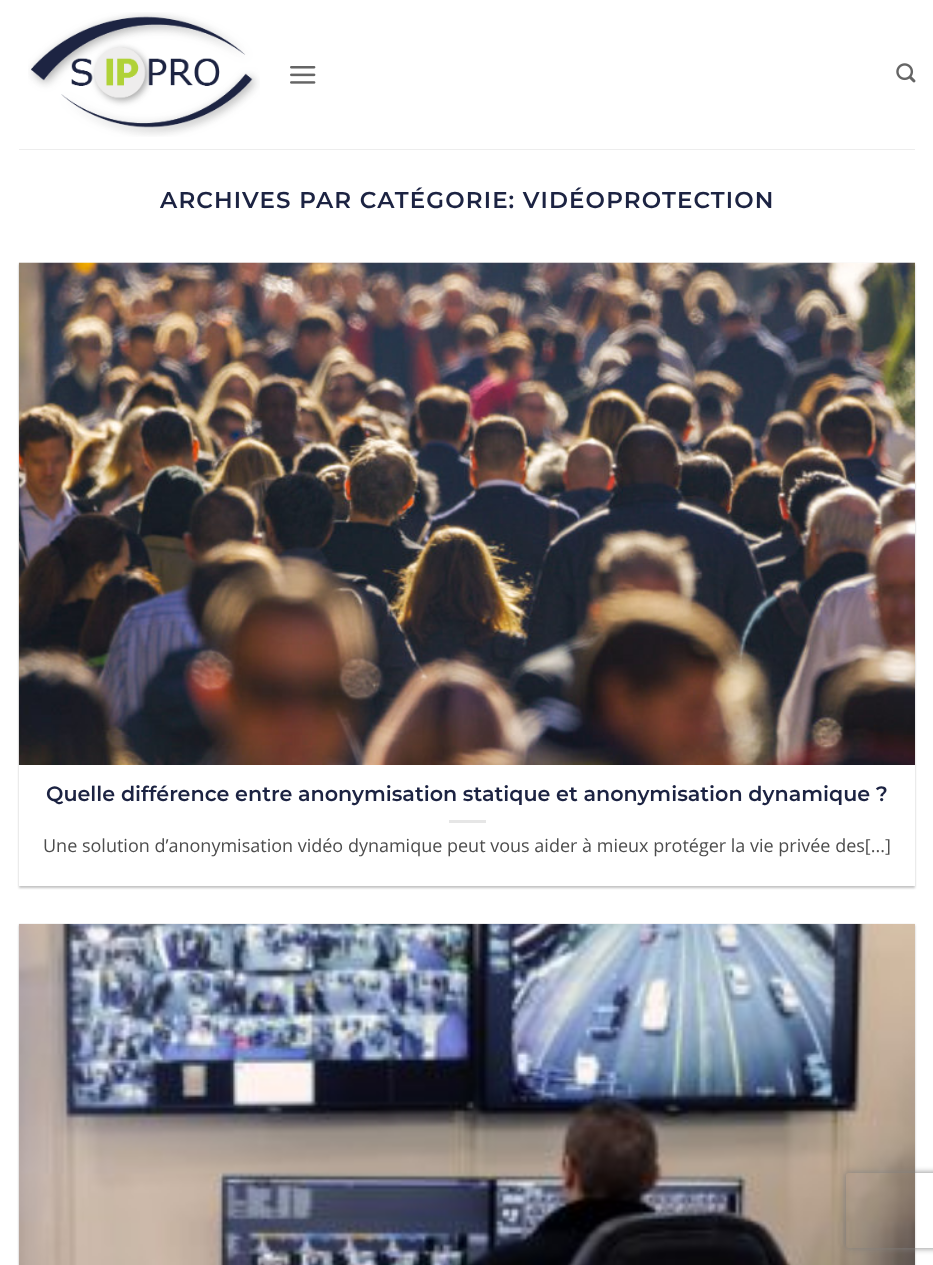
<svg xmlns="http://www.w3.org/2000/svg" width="933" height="1265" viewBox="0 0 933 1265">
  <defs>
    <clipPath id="clip1"><path d="M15 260H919V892H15ZM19 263H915V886H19Z" clip-rule="evenodd"/></clipPath>
    <clipPath id="clip2"><path d="M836 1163H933V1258H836ZM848.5 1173H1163.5C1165 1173 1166 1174 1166 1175.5V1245.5C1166 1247 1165 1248 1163.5 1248H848.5C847 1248 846 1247 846 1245.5V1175.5C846 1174 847 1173 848.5 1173Z" clip-rule="evenodd"/></clipPath>
  </defs>
  <rect width="100%" height="100%" fill="#fff"/>
  <image x="28" y="12" width="232" height="125" href="img/1.png"/>
  <image x="290" y="66" width="26" height="18" href="img/2.png"/>
  <image x="896" y="63" width="20" height="20" href="img/3.png"/>
  <path d="M19 149h896v1H19z" fill="#ededed"/>
  <g clip-path="url(#clip1)">
    <path d="M19 264h896v624H19z" fill="#0000003d" filter="blur(1px)"/>
  </g>
  <image x="18" y="262" width="897" height="503" href="img/4.png"/>
  <path d="M449 820h37v3H449z" fill="#e6e6e6"/>
  <path d="M19 925h896v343H19z" fill="#0000003d" filter="blur(1px)"/>
  <image x="18" y="923" width="897" height="342" href="img/5.png"/>
  <g clip-path="url(#clip2)">
    <rect x="846" y="1173" width="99" height="75" rx="2.5" fill="#808080" filter="blur(3px)"/>
  </g>
  <text x="160" y="208" font-family="Montserrat" font-size="23" font-weight="100" letter-spacing="1.15" fill="#1c2342">ARCHIVES PAR CATÉGORIE: VIDÉOPROTECTION</text>
  <text x="46" y="801" font-family="Montserrat" font-size="20.7" font-weight="100" fill="#1c2342">Quelle différence entre anonymisation statique et anonymisation dynamique ?</text>
  <text x="43" y="852" font-family="Open Sans" font-size="18" fill="#4d4d4d">Une solution d’anonymisation vidéo dynamique peut vous aider à mieux protéger la vie privée des[...]</text>
</svg>
